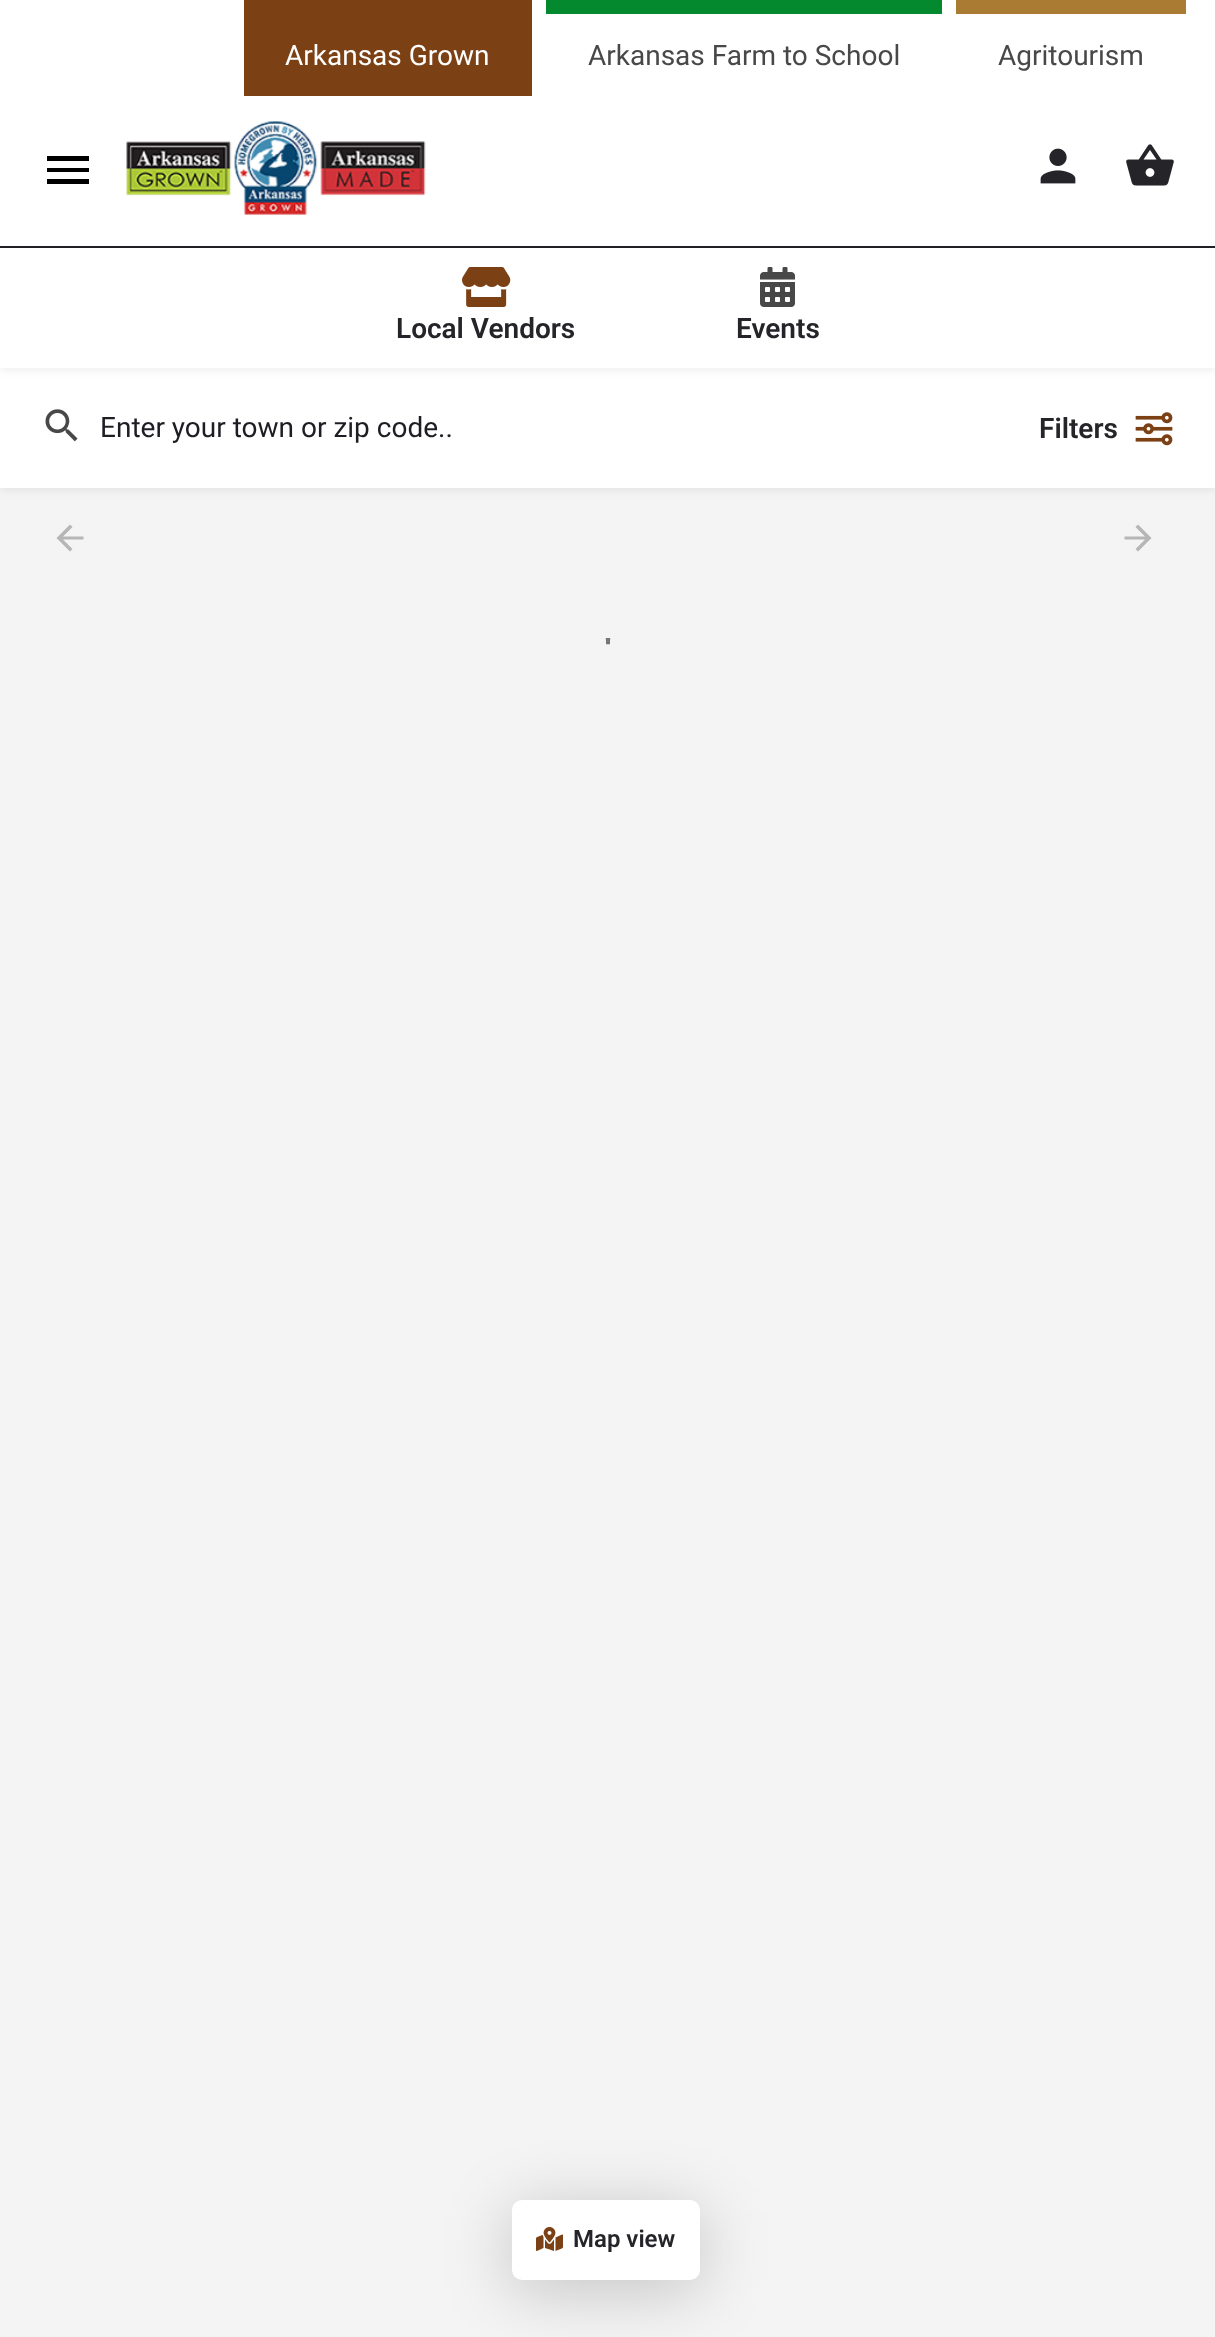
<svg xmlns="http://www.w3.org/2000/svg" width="1215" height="2337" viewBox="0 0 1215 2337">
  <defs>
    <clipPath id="clip1"><path d="M580 638h28v56H580z"/></clipPath>
    <clipPath id="clip2"><path d="M606 638h4v56H606z"/></clipPath>
    <clipPath id="clip3"><path d="M608 638h28v56H608z"/></clipPath>
  </defs>
  <rect width="100%" height="100%" fill="#f4f4f4"/>
  <path d="M0 370h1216v120H0z" fill="#00000012" filter="blur(4px)"/>
  <path d="M0 368h1215v120H0z" fill="#fff"/>
  <path d="M0 250h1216v120H0z" fill="#00000012" filter="blur(4px)"/>
  <path d="M0 0h1215v246H0z" fill="#fff"/>
  <path d="M244 0h288v96H244z" fill="#7c4015"/>
  <path d="M546 0h396v14H546z" fill="#05892f"/>
  <path d="M956 0h230v14H956z" fill="#aa7b33"/>
  <path d="M47 156H89V161H47ZM47 172V168H89V172ZM47 184V179H89V184Z" fill="#000"/>
  <image x="126" y="121" width="300" height="94" href="img/1.png"/>
  <image x="1040" y="148" width="36" height="36" href="img/2.png"/>
  <image x="1126" y="144" width="48" height="42" href="img/3.png"/>
  <path d="M0 246h1215v2H0z" fill="#202125"/>
  <path d="M0 248h1215v120H0z" fill="#fff"/>
  <image x="462" y="267" width="49" height="40" href="img/4.png"/>
  <image x="760" y="267" width="35" height="40" href="img/5.png"/>
  <image x="45" y="409" width="33" height="33" href="img/6.png"/>
  <image x="1135" y="412" width="38" height="34" href="img/7.png"/>
  <path d="M83.5 536.5V539.5H63L72.5 549L70 551.5L56.5 538L70 524.5L72.5 527L63 536.5Z" fill="#b6b6b7"/>
  <path d="M1138 524.5L1151.5 538L1138 551.5L1135.5 549L1145 539.5H1124.5V536.5H1145L1135.5 527Z" fill="#b6b6b7"/>
  <g clip-path="url(#clip1)">
    <path d="M606 641C638.5 638 643 688 610 691" fill="none" stroke="#777" stroke-width="6"/>
  </g>
  <g clip-path="url(#clip2)">
    <path d="M590.5 683.5C584.5 678 582 669 583.5 661C589.5 632 633 636 633 666C633 672.5 630.5 679 625.5 683.5" fill="none" stroke="#777" stroke-width="6"/>
  </g>
  <g clip-path="url(#clip3)">
    <path d="M606 691C573 688 577.5 638 610 641" fill="none" stroke="#777" stroke-width="6"/>
  </g>
  <rect x="512" y="2210" width="188" height="80" rx="10" fill="#00000033" filter="blur(33px)"/>
  <rect x="512" y="2200" width="188" height="80" rx="10" fill="#fff"/>
  <image x="536" y="2227" width="27" height="24" href="img/8.png"/>
  <text x="285" y="65" font-family="Roboto" font-size="28" fill="#fff">Arkansas Grown</text>
  <g font-family="Roboto" font-size="28" fill="#484848">
    <text x="588" y="65">Arkansas Farm to School</text>
    <text x="998" y="65">Agritourism</text>
  </g>
  <g font-family="Roboto" font-size="28" font-weight="600" fill="#242429">
    <text x="396" y="338">Local Vendors</text>
    <text x="736" y="338">Events</text>
  </g>
  <text x="100" y="437" font-family="Roboto" font-size="28" fill="#1d1d23">Enter your town or zip code..</text>
  <text x="1039" y="438" font-family="Roboto" font-size="28" font-weight="600" fill="#242429">Filters</text>
  <text x="573" y="2247" font-family="Roboto" font-size="24" font-weight="600" fill="#242429">Map view</text>
</svg>
